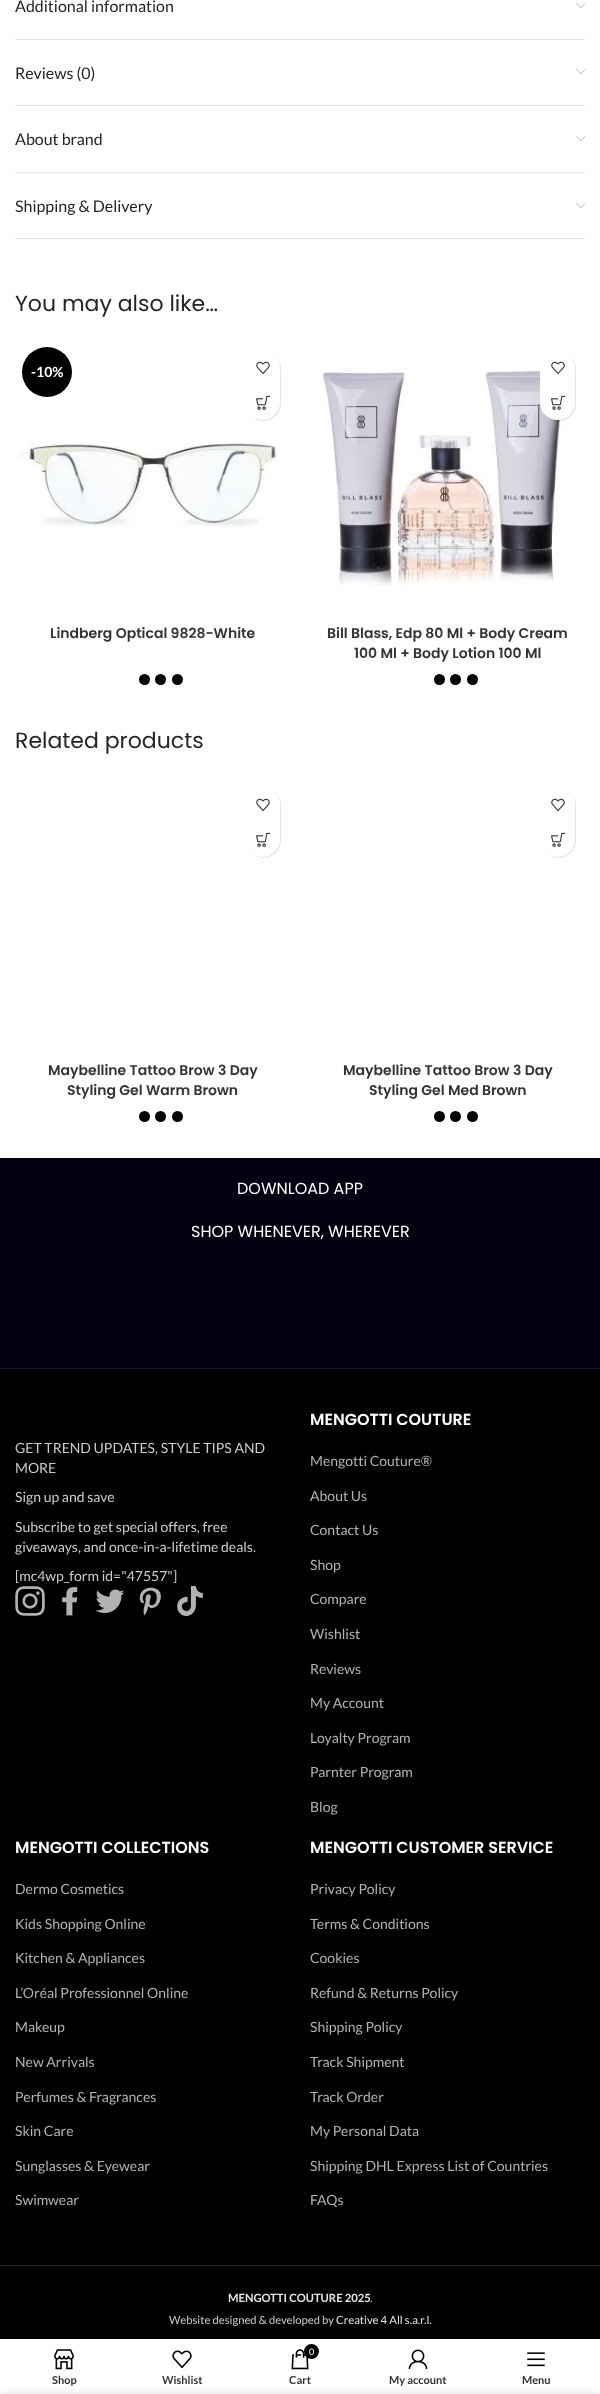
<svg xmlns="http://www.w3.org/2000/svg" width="600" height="2394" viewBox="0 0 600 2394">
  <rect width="100%" height="100%" fill="#fff"/>
  <path d="M15 39h570v1H15z" fill="#e4e4e4"/>
  <image x="576" y="3" width="10" height="5" href="img/1.png"/>
  <path d="M15 105h570v1H15z" fill="#e4e4e4"/>
  <image x="576" y="69" width="10" height="5" href="img/1.png"/>
  <path d="M15 172h570v1H15z" fill="#e4e4e4"/>
  <image x="576" y="136" width="10" height="5" href="img/1.png"/>
  <path d="M15 238h570v1H15z" fill="#e4e4e4"/>
  <image x="576" y="203" width="10" height="5" href="img/1.png"/>
  <circle cx="47" cy="372" r="25" fill="#000"/>
  <image x="19" y="442" width="260" height="86" href="img/2.png"/>
  <rect x="246" y="351" width="35" height="70" rx="17.5" fill="#0000001a" filter="blur(0.5px)"/>
  <rect x="245" y="350" width="35" height="70" rx="17.5" fill="#fff"/>
  <image x="256" y="361" width="14" height="13" href="img/3.png"/>
  <image x="256" y="395" width="14" height="15" href="img/4.png"/>
  <circle cx="160.5" cy="679.5" r="5.5" fill="#000"/>
  <circle cx="144.5" cy="679.5" r="5.5" fill="#000"/>
  <circle cx="177.5" cy="679.5" r="5.5" fill="#000"/>
  <image x="321" y="369" width="249" height="217" href="img/5.png"/>
  <rect x="541" y="351" width="35" height="70" rx="17.5" fill="#0000001a" filter="blur(0.5px)"/>
  <rect x="540" y="350" width="35" height="70" rx="17.5" fill="#fff"/>
  <image x="551" y="361" width="14" height="13" href="img/3.png"/>
  <image x="551" y="395" width="14" height="15" href="img/4.png"/>
  <circle cx="455.5" cy="679.5" r="5.5" fill="#000"/>
  <circle cx="439.5" cy="679.5" r="5.5" fill="#000"/>
  <circle cx="472.5" cy="679.5" r="5.5" fill="#000"/>
  <rect x="246" y="788" width="35" height="70" rx="17.5" fill="#0000001a" filter="blur(0.5px)"/>
  <rect x="245" y="787" width="35" height="70" rx="17.5" fill="#fff"/>
  <image x="256" y="798" width="14" height="13" href="img/3.png"/>
  <image x="256" y="832" width="14" height="15" href="img/4.png"/>
  <circle cx="160.5" cy="1116.5" r="5.5" fill="#000"/>
  <circle cx="144.5" cy="1116.5" r="5.5" fill="#000"/>
  <circle cx="177.5" cy="1116.5" r="5.5" fill="#000"/>
  <rect x="541" y="788" width="35" height="70" rx="17.5" fill="#0000001a" filter="blur(0.5px)"/>
  <rect x="540" y="787" width="35" height="70" rx="17.5" fill="#fff"/>
  <image x="551" y="798" width="14" height="13" href="img/3.png"/>
  <image x="551" y="832" width="14" height="15" href="img/4.png"/>
  <circle cx="455.5" cy="1116.5" r="5.5" fill="#000"/>
  <circle cx="439.5" cy="1116.5" r="5.5" fill="#000"/>
  <circle cx="472.5" cy="1116.5" r="5.5" fill="#000"/>
  <path d="M0 1158h600v210H0z" fill="#001"/>
  <path d="M0 1368h600v1H0z" fill="#1a1a29"/>
  <path d="M0 1369h600v970H0z" fill="#000"/>
  <image x="15" y="1586" width="30" height="30" href="img/6.png"/>
  <image x="62" y="1587" width="16" height="29" href="img/7.png"/>
  <image x="95" y="1589" width="30" height="24" href="img/8.png"/>
  <image x="139" y="1587" width="22" height="29" href="img/9.png"/>
  <image x="177" y="1586" width="26" height="30" href="img/10.png"/>
  <path d="M0 2265h600v1H0z" fill="#262626"/>
  <image x="54" y="2349" width="20" height="21" href="img/11.png"/>
  <image x="172" y="2350" width="20" height="18" href="img/12.png"/>
  <image x="291" y="2349" width="18" height="21" href="img/13.png"/>
  <circle cx="311.5" cy="2351.5" r="7.5" fill="#000"/>
  <image x="408" y="2349" width="20" height="20" href="img/14.png"/>
  <image x="527" y="2352" width="18" height="15" href="img/15.png"/>
  <path d="M0 2394h600v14H0z" fill="#00000024" filter="blur(4.5px)"/>
  <g font-family="Lato" font-size="16" fill="#242424">
    <text x="15" y="12">Additional information</text>
    <text x="15" y="79">Reviews (0)</text>
    <text x="15" y="145">About brand</text>
    <text x="15" y="212">Shipping &amp; Delivery</text>
  </g>
  <text x="15" y="311" font-family="Poppins" font-size="22" fill="#242424">You may also like…</text>
  <text x="31" y="377" font-family="Lato" font-size="14" font-weight="bold" fill="#fff">-10%</text>
  <g font-family="Poppins" font-size="14" font-weight="600" fill="#333">
    <text x="50" y="638">Lindberg Optical 9828-White</text>
    <text x="327" y="638">Bill Blass, Edp 80 Ml + Body Cream</text>
    <text x="354" y="658">100 Ml + Body Lotion 100 Ml</text>
  </g>
  <text x="15" y="748" font-family="Poppins" font-size="22" fill="#242424">Related products</text>
  <g font-family="Poppins" font-size="14" font-weight="600" fill="#333">
    <text x="48" y="1075">Maybelline Tattoo Brow 3 Day</text>
    <text x="67" y="1095">Styling Gel Warm Brown</text>
    <text x="343" y="1075">Maybelline Tattoo Brow 3 Day</text>
    <text x="369" y="1095">Styling Gel Med Brown</text>
  </g>
  <g font-family="Poppins" font-size="16" fill="#fff">
    <text x="237" y="1194">DOWNLOAD APP</text>
    <text x="191" y="1237">SHOP WHENEVER, WHEREVER</text>
  </g>
  <g font-family="Lato" font-size="14" fill="#ccc">
    <text x="15" y="1453">GET TREND UPDATES, STYLE TIPS AND</text>
    <text x="15" y="1473">MORE</text>
    <text x="15" y="1502">Sign up and save</text>
    <text x="15" y="1532">Subscribe to get special offers, free</text>
    <text x="15" y="1552">giveaways, and once-in-a-lifetime deals.</text>
    <text x="15" y="1581">[mc4wp_form id="47557"]</text>
  </g>
  <text x="310" y="1425" font-family="Poppins" font-size="16" font-weight="600" fill="#fff">MENGOTTI COUTURE</text>
  <g font-family="Lato" font-size="14" fill="#b3b3b3">
    <text x="310" y="1466">Mengotti Couture®</text>
    <text x="310" y="1501">About Us</text>
    <text x="310" y="1535">Contact Us</text>
    <text x="310" y="1570">Shop</text>
    <text x="310" y="1604">Compare</text>
    <text x="310" y="1639">Wishlist</text>
    <text x="310" y="1674">Reviews</text>
    <text x="310" y="1708">My Account</text>
    <text x="310" y="1743">Loyalty Program</text>
    <text x="310" y="1777">Parnter Program</text>
    <text x="310" y="1812">Blog</text>
  </g>
  <text x="15" y="1853" font-family="Poppins" font-size="16" font-weight="600" fill="#fff">MENGOTTI COLLECTIONS</text>
  <g font-family="Lato" font-size="14" fill="#b3b3b3">
    <text x="15" y="1894">Dermo Cosmetics</text>
    <text x="15" y="1929">Kids Shopping Online</text>
    <text x="15" y="1963">Kitchen &amp; Appliances</text>
    <text x="15" y="1998">L’Oréal Professionnel Online</text>
    <text x="15" y="2032">Makeup</text>
    <text x="15" y="2067">New Arrivals</text>
    <text x="15" y="2102">Perfumes &amp; Fragrances</text>
    <text x="15" y="2136">Skin Care</text>
    <text x="15" y="2171">Sunglasses &amp; Eyewear</text>
    <text x="15" y="2205">Swimwear</text>
  </g>
  <text x="310" y="1853" font-family="Poppins" font-size="16" font-weight="600" fill="#fff">MENGOTTI CUSTOMER SERVICE</text>
  <g font-family="Lato" font-size="14" fill="#b3b3b3">
    <text x="310" y="1894">Privacy Policy</text>
    <text x="310" y="1929">Terms &amp; Conditions</text>
    <text x="310" y="1963">Cookies</text>
    <text x="310" y="1998">Refund &amp; Returns Policy</text>
    <text x="310" y="2032">Shipping Policy</text>
    <text x="310" y="2067">Track Shipment</text>
    <text x="310" y="2102">Track Order</text>
    <text x="310" y="2136">My Personal Data</text>
    <text x="310" y="2171">Shipping DHL Express List of Countries</text>
    <text x="310" y="2205">FAQs</text>
  </g>
  <text x="228" y="2302" font-family="Lato" font-size="11.25" font-weight="bold" fill="#e6e6e6">MENGOTTI COUTURE 2025</text>
  <g font-family="Lato" font-size="11.25" fill="#ccc">
    <text x="370" y="2302">.</text>
    <text x="169" y="2324">Website designed &amp; developed by</text>
  </g>
  <text x="336" y="2324" font-family="Lato" font-size="11.25" fill="#e6e6e6">Creative 4 All s.a.r.l.</text>
  <g font-family="Lato" font-size="11" font-weight="bold" fill="#333">
    <text x="52" y="2384">Shop</text>
    <text x="162" y="2384">Wishlist</text>
  </g>
  <text x="309" y="2355" font-family="Lato" font-size="9" fill="#fff">0</text>
  <g font-family="Lato" font-size="11" font-weight="bold" fill="#333">
    <text x="289" y="2384">Cart</text>
    <text x="389" y="2384">My account</text>
    <text x="522" y="2384">Menu</text>
  </g>
</svg>
